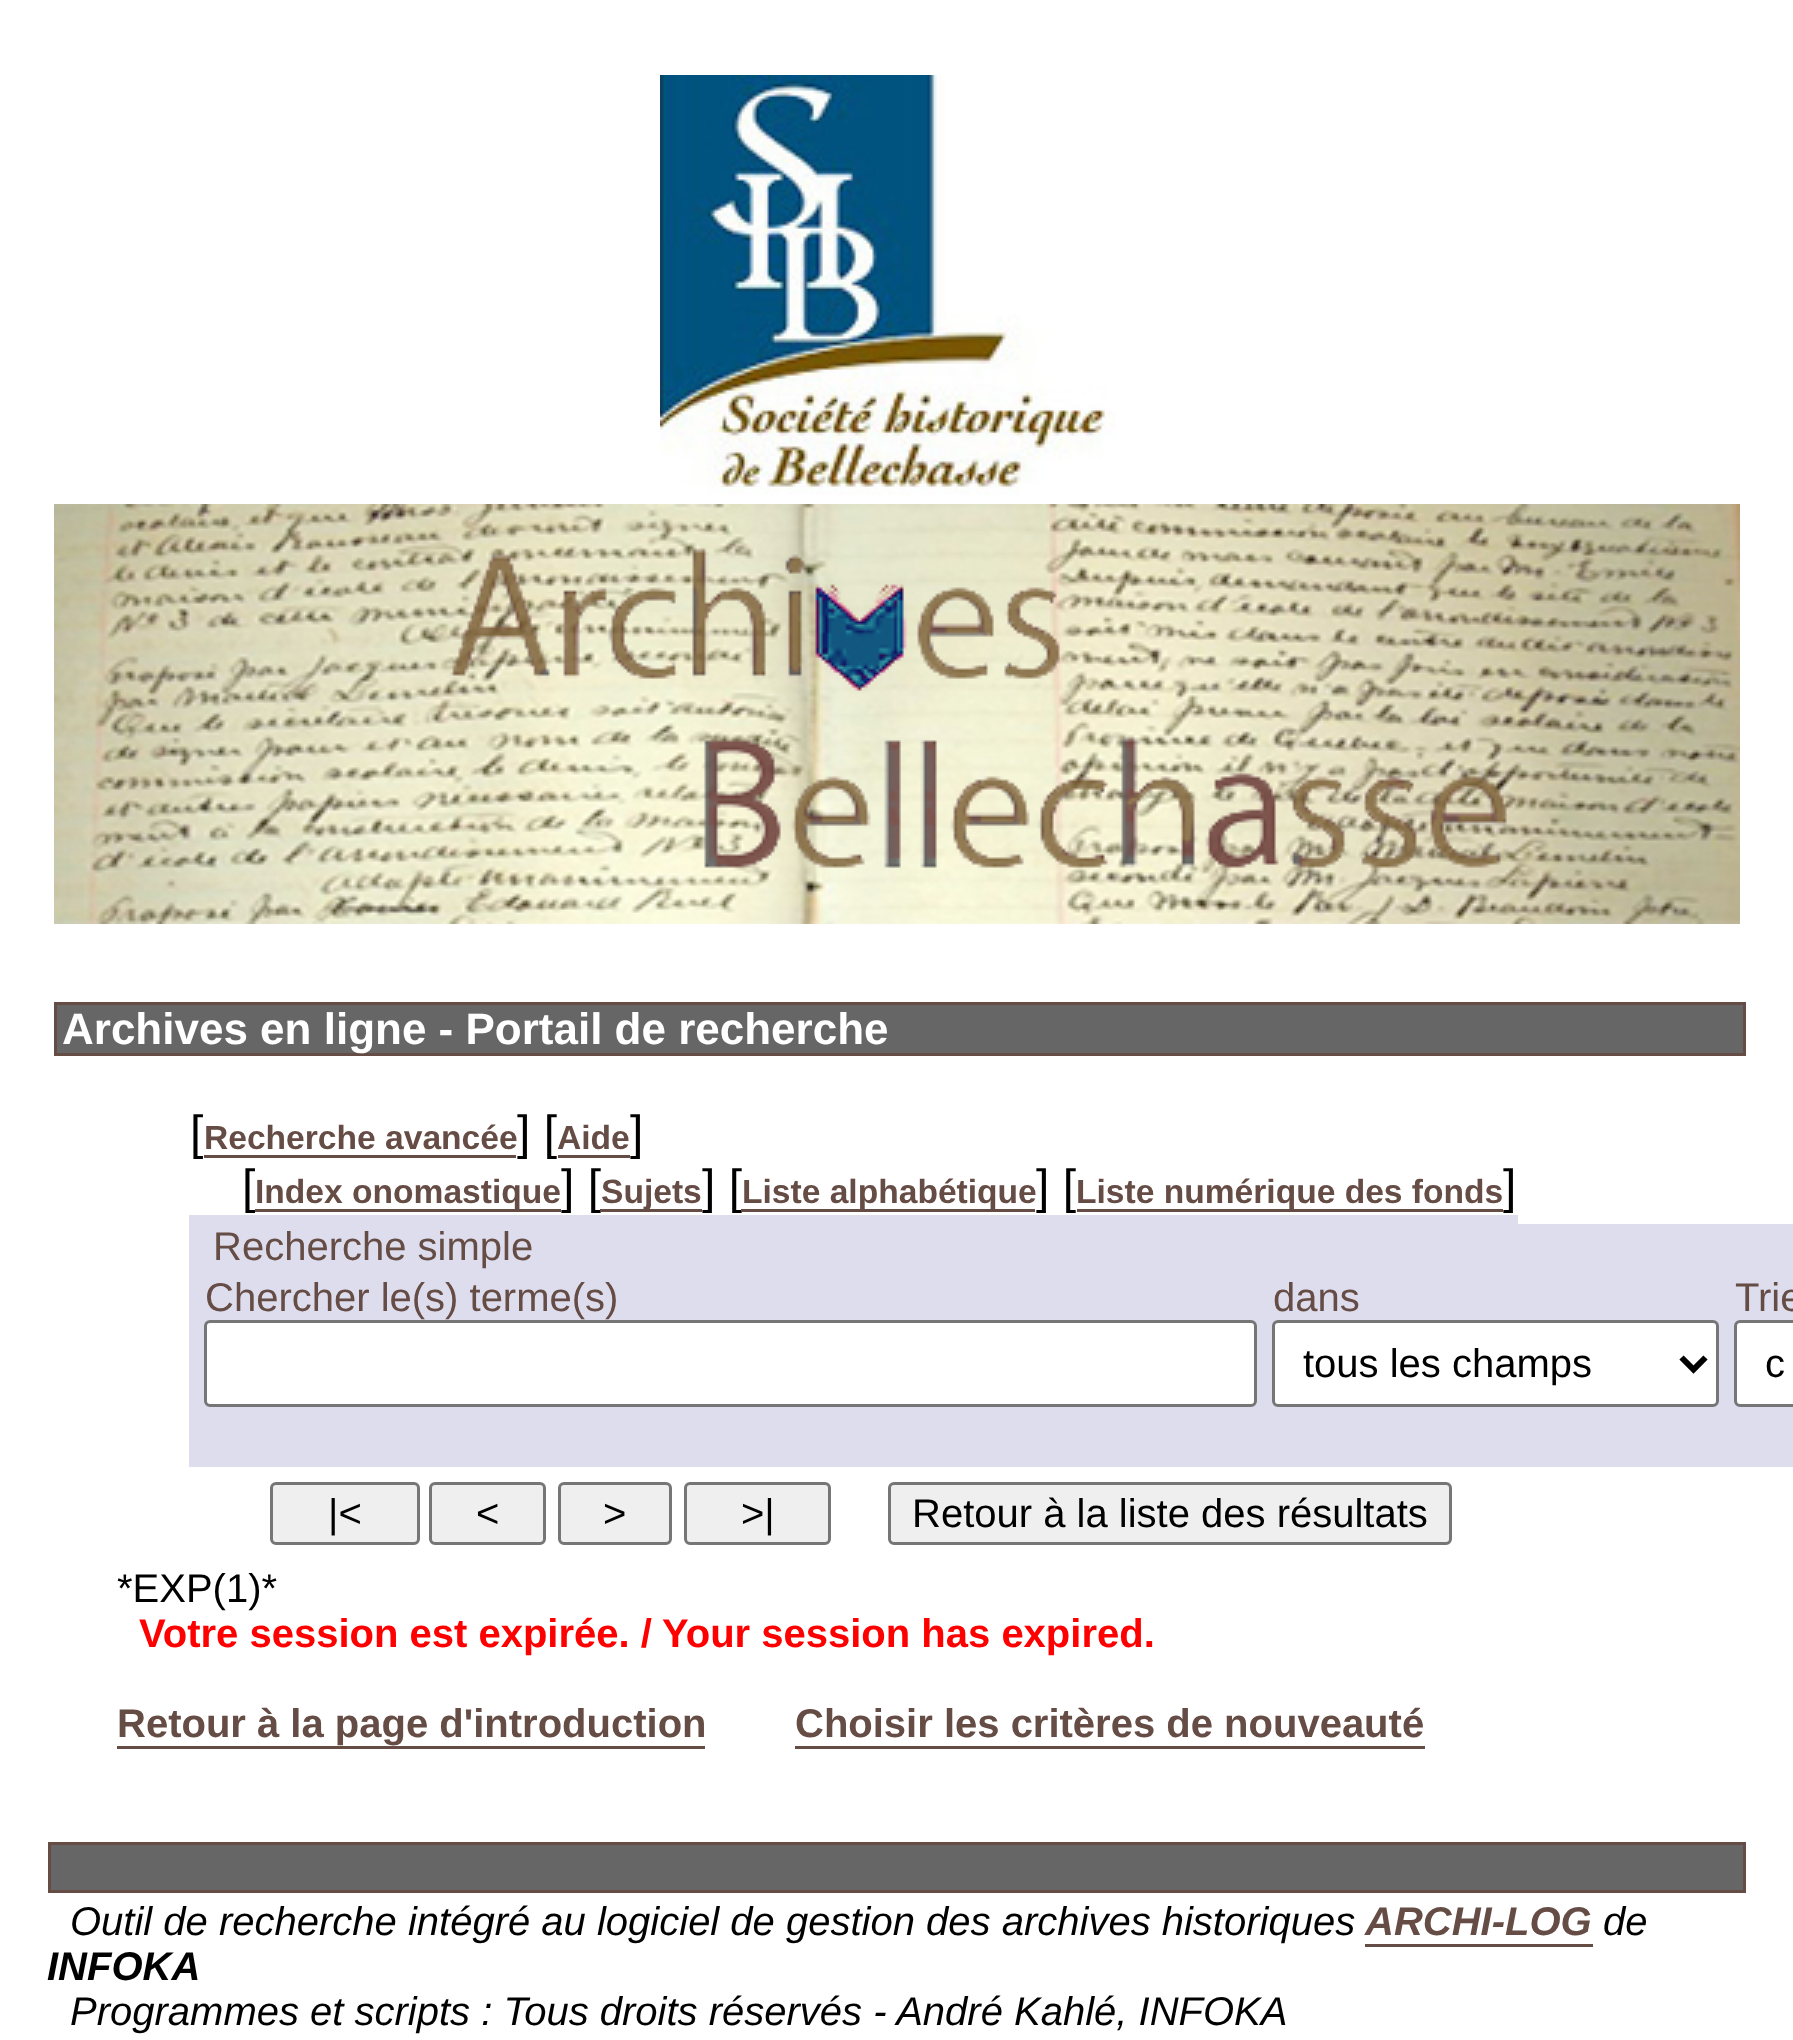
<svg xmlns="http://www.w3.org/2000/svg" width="1793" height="2040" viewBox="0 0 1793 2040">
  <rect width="100%" height="100%" fill="#fff"/>
  <image x="660" y="75" width="456" height="420" href="img/1.png"/>
  <image x="54" y="504" width="1686" height="420" href="img/2.png"/>
  <path d="M55.5 1003.5h1689v51H55.5z" fill="#666" stroke="#654c45" stroke-width="3"/>
  <path d="M204 1155h312v3H204z" fill="#654c45"/>
  <path d="M558 1155h72v3H558z" fill="#654c45"/>
  <path d="M255 1209h306v3H255z" fill="#654c45"/>
  <path d="M1077 1209h426v3H1077z" fill="#654c45"/>
  <path d="M189 1215h1329v9H189z" fill="#dde"/>
  <path d="M189 1224h1604v243H189z" fill="#dde"/>
  <rect x="205.5" y="1321.5" width="1050" height="84" rx="4.5" fill="#fff" stroke="#767676" stroke-width="3"/>
  <rect x="1273.5" y="1321.5" width="444" height="84" rx="4.5" fill="#fff" stroke="#767676" stroke-width="3"/>
  <path d="M1681.5 1357.5L1693.5 1369.5L1705.5 1357.5" fill="none" stroke="#000" stroke-width="6"/>
  <rect x="1735.5" y="1321.5" width="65" height="84" rx="4.5" fill="#fff" stroke="#767676" stroke-width="3"/>
  <rect x="271.5" y="1483.5" width="147" height="60" rx="4.5" fill="#efefef" stroke="#767676" stroke-width="3"/>
  <rect x="430.5" y="1483.5" width="114" height="60" rx="4.5" fill="#efefef" stroke="#767676" stroke-width="3"/>
  <rect x="559.5" y="1483.5" width="111" height="60" rx="4.5" fill="#efefef" stroke="#767676" stroke-width="3"/>
  <rect x="685.5" y="1483.5" width="144" height="60" rx="4.5" fill="#efefef" stroke="#767676" stroke-width="3"/>
  <rect x="889.5" y="1483.5" width="561" height="60" rx="4.5" fill="#efefef" stroke="#767676" stroke-width="3"/>
  <path d="M117 1746h588v3H117z" fill="#654c45"/>
  <path d="M795 1746h630v3H795z" fill="#654c45"/>
  <path d="M49.5 1843.5h1695v48H49.5z" fill="#666" stroke="#654c45" stroke-width="3"/>
  <path d="M1365 1944h228v3H1365z" fill="#654c45"/>
  <text x="62" y="1044" font-family="Liberation Sans" font-size="44" font-weight="bold" fill="#fff">Archives en ligne - Portail de recherche</text>
  <text x="190" y="1149" font-family="Liberation Sans" font-size="48" fill="#000">[</text>
  <text x="204" y="1149" font-family="Liberation Sans" font-size="33.6" font-weight="bold" fill="#654c45">Recherche avancée</text>
  <text x="517" y="1149" font-family="Liberation Sans" font-size="48" fill="#000">] [</text>
  <text x="557" y="1149" font-family="Liberation Sans" font-size="33.6" font-weight="bold" fill="#654c45">Aide</text>
  <g font-family="Liberation Sans" font-size="48" fill="#000">
    <text x="630" y="1149">]</text>
    <text x="242" y="1203">[</text>
  </g>
  <text x="255" y="1203" font-family="Liberation Sans" font-size="33.6" font-weight="bold" fill="#654c45">Index onomastique</text>
  <text x="561" y="1203" font-family="Liberation Sans" font-size="48" fill="#000">] [</text>
  <path d="M600 1209h102v3H600z" fill="#654c45"/>
  <text x="601" y="1203" font-family="Liberation Sans" font-size="33.6" font-weight="bold" fill="#654c45">Sujets</text>
  <text x="702" y="1203" font-family="Liberation Sans" font-size="48" fill="#000">] [</text>
  <path d="M741 1209h294v3H741z" fill="#654c45"/>
  <text x="742" y="1203" font-family="Liberation Sans" font-size="33.6" font-weight="bold" fill="#654c45">Liste alphabétique</text>
  <text x="1036" y="1203" font-family="Liberation Sans" font-size="48" fill="#000">] [</text>
  <text x="1076" y="1203" font-family="Liberation Sans" font-size="33.6" font-weight="bold" fill="#654c45">Liste numérique des fonds</text>
  <text x="1503" y="1203" font-family="Liberation Sans" font-size="48" fill="#000">]</text>
  <g font-family="Liberation Sans" font-size="40" fill="#654c45">
    <text x="213" y="1260">Recherche simple</text>
    <text x="205" y="1311">Chercher le(s) terme(s)</text>
    <text x="1273" y="1311">dans</text>
    <text x="1735" y="1311">Trie</text>
  </g>
  <g font-family="Liberation Sans" font-size="40" fill="#000">
    <text x="1303" y="1377">tous les champs</text>
    <text x="1765" y="1377">c</text>
    <text x="328" y="1527">|&lt;</text>
    <text x="476" y="1527">&lt;</text>
    <text x="603" y="1527">&gt;</text>
    <text x="741" y="1527">&gt;|</text>
    <text x="912" y="1527">Retour à la liste des résultats</text>
    <text x="117" y="1602">*EXP(1)*</text>
  </g>
  <g font-family="Liberation Sans" font-size="40" font-weight="bold" fill="#f00">
    <text x="139" y="1647">Votre session est expirée. /</text>
    <text x="662" y="1647">Your session has expired.</text>
  </g>
  <g font-family="Liberation Sans" font-size="40" font-weight="bold" fill="#654c45">
    <text x="117" y="1737">Retour à la page d'introduction</text>
    <text x="795" y="1737">Choisir les critères de nouveauté</text>
  </g>
  <text x="70" y="1935" font-family="Liberation Sans" font-size="40" font-style="italic" fill="#000">Outil de recherche intégré au logiciel de gestion des archives historiques</text>
  <text x="1365" y="1935" font-family="Liberation Sans" font-size="40" font-weight="bold" font-style="italic" fill="#654c45">ARCHI-LOG</text>
  <text x="1603" y="1935" font-family="Liberation Sans" font-size="40" font-style="italic" fill="#000">de</text>
  <text x="47" y="1980" font-family="Liberation Sans" font-size="40" font-weight="bold" font-style="italic" fill="#000">INFOKA</text>
  <text x="70" y="2025" font-family="Liberation Sans" font-size="40" font-style="italic" fill="#000">Programmes et scripts : Tous droits réservés - André Kahlé, INFOKA</text>
</svg>
